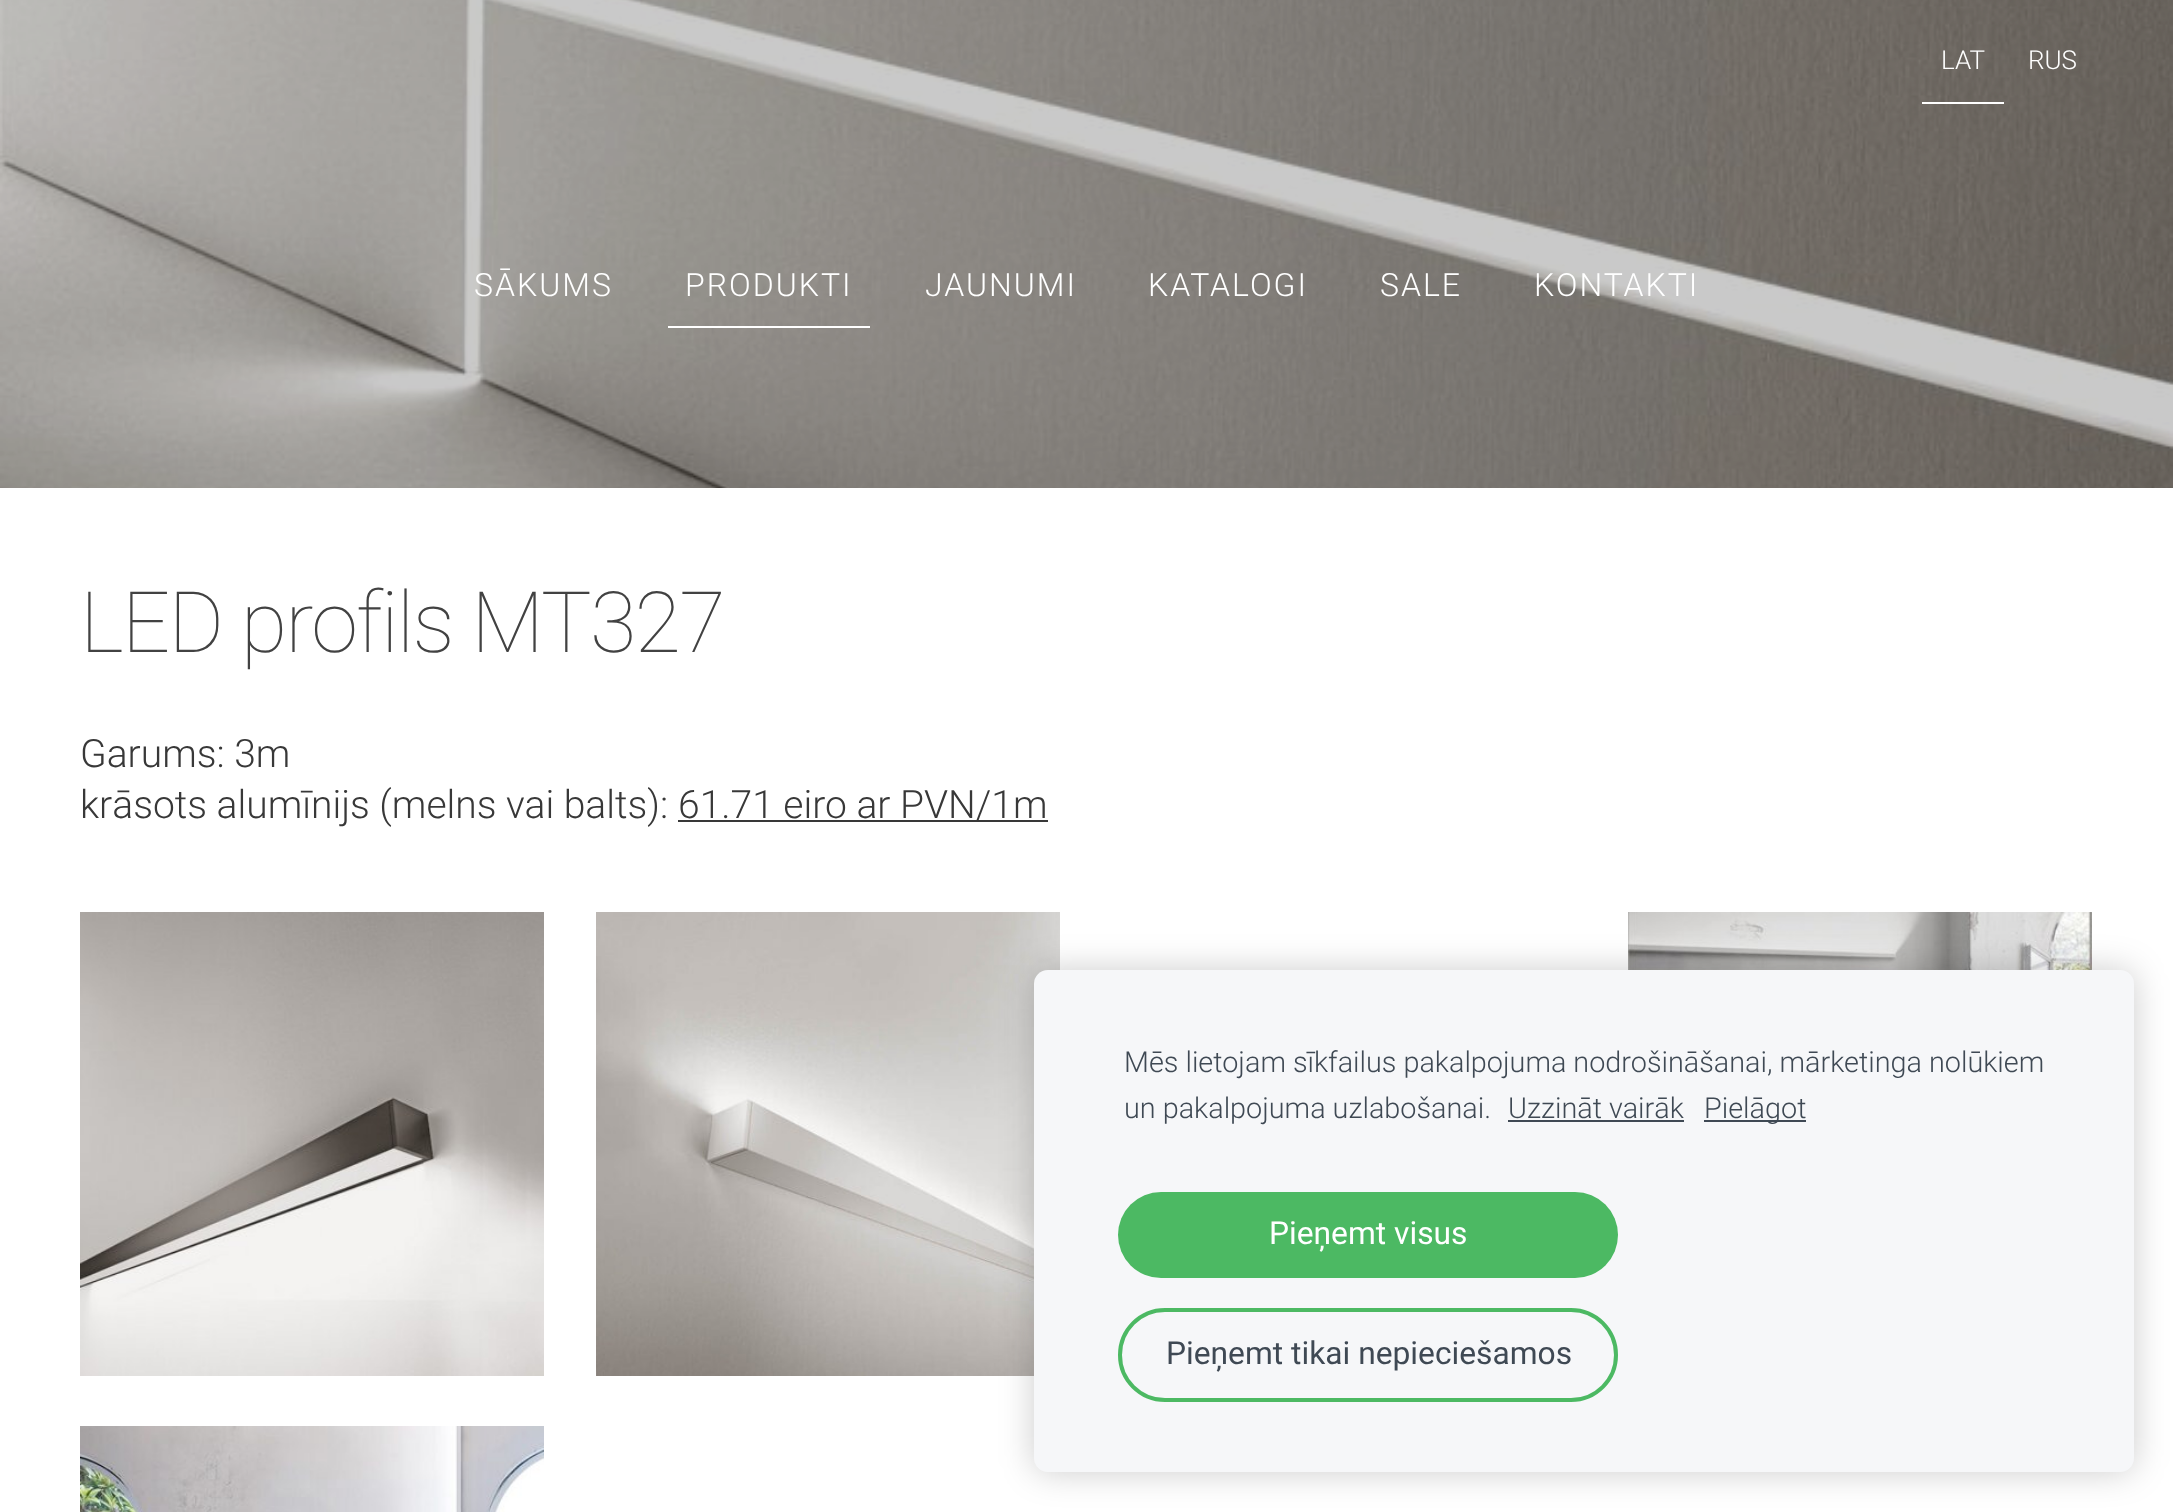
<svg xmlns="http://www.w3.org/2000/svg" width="2173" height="1512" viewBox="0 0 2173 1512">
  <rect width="100%" height="100%" fill="#fff"/>
  <image x="0" y="0" width="2173" height="488" href="img/1.png"/>
  <path d="M1922 102h82v2H1922z" fill="#fff"/>
  <path d="M668 326h202v2H668z" fill="#fff"/>
  <path d="M678 820h370v2H678z" fill="#383838"/>
  <image x="80" y="912" width="464" height="464" href="img/2.png"/>
  <image x="596" y="912" width="464" height="464" href="img/3.png"/>
  <image x="1112" y="912" width="464" height="58" href="img/4.png"/>
  <image x="1628" y="912" width="464" height="58" href="img/5.png"/>
  <image x="80" y="1426" width="464" height="86" href="img/6.png"/>
  <rect x="1034" y="970" width="1100" height="502" rx="14" fill="#00000033" filter="blur(17px)"/>
  <rect x="1034" y="970" width="1100" height="502" rx="14" fill="#f6f7f9"/>
  <path d="M1508 1120h176v2H1508z" fill="#3f4954"/>
  <path d="M1704 1120h102v2H1704z" fill="#3f4954"/>
  <rect x="1118" y="1192" width="500" height="86" rx="43" fill="#4cb963"/>
  <rect x="1120" y="1310" width="496" height="90" rx="45" fill="none" stroke="#4cb963" stroke-width="4"/>
  <g font-family="Roboto" font-size="26" font-weight="300" fill="#fff">
    <text x="1941" y="69">LAT</text>
    <text x="2028" y="69">RUS</text>
  </g>
  <g font-family="Roboto" font-size="32" font-weight="300" letter-spacing="2" fill="#fff">
    <text x="474" y="296">SĀKUMS</text>
    <text x="685" y="296">PRODUKTI</text>
    <text x="925" y="296">JAUNUMI</text>
    <text x="1148" y="296">KATALOGI</text>
    <text x="1380" y="296">SALE</text>
    <text x="1534" y="296">KONTAKTI</text>
  </g>
  <text x="80" y="652" font-family="Roboto" font-size="84.75" font-weight="100" letter-spacing="-1.75" fill="#424242">LED profils MT327</text>
  <g font-family="Roboto" font-size="39" font-weight="300" fill="#383838">
    <text x="80" y="767">Garums: 3m</text>
    <text x="80" y="818">krāsots alumīnijs (melns vai balts):</text>
    <text x="678" y="818">61.71 eiro ar PVN/1m</text>
  </g>
  <g font-family="Roboto" font-size="28.8" font-weight="300" fill="#3f4954">
    <text x="1124" y="1072">Mēs lietojam sīkfailus pakalpojuma nodrošināšanai, mārketinga nolūkiem</text>
    <text x="1124" y="1118">un pakalpojuma uzlabošanai.</text>
    <text x="1508" y="1118">Uzzināt vairāk</text>
    <text x="1704" y="1118">Pielāgot</text>
  </g>
  <text x="1269" y="1244" font-family="Roboto" font-size="31.75" fill="#fff">Pieņemt visus</text>
  <text x="1166" y="1364" font-family="Roboto" font-size="31.75" fill="#3f4954">Pieņemt tikai nepieciešamos</text>
</svg>
